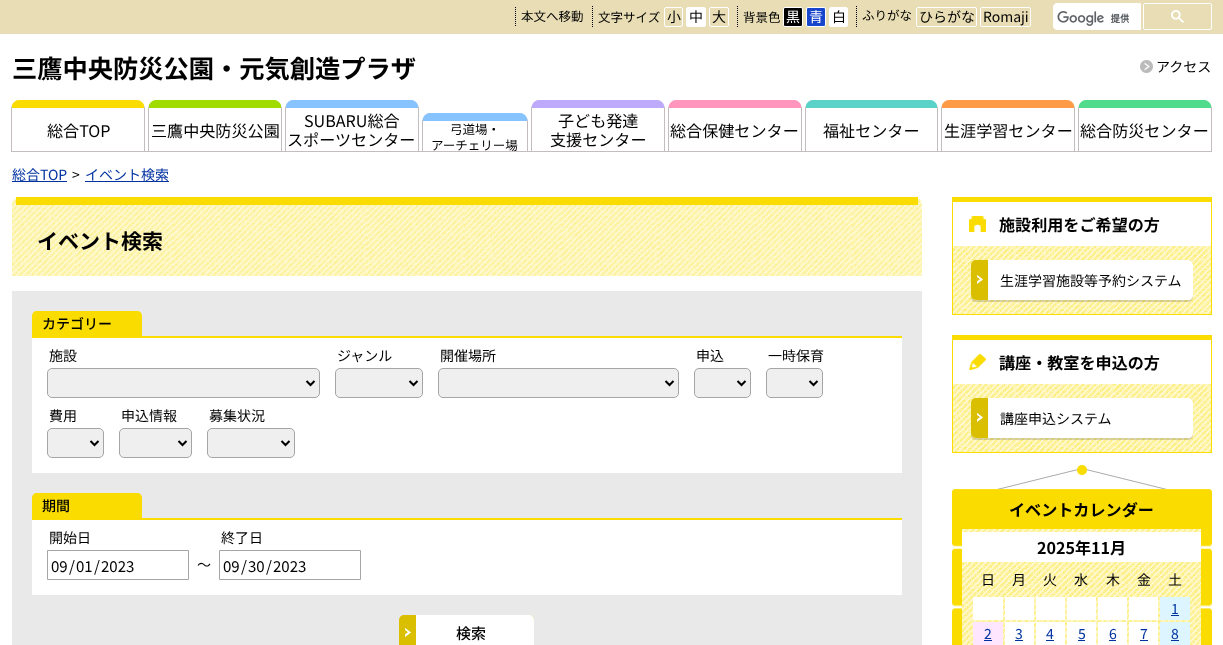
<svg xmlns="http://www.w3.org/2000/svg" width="1223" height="645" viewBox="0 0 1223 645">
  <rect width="100%" height="100%" fill="#fff"/>
  <path d="M0 0h1223v34H0z" fill="#e8ddb4"/>
  <path d="M515.5 7V26" fill="none" stroke="#000" stroke-dasharray="1 1"/>
  <path d="M592.5 6V27" fill="none" stroke="#000" stroke-dasharray="1 1"/>
  <rect x="664.5" y="7.5" width="18" height="19" rx="1.5" fill="none" stroke="#fff"/>
  <rect x="686.5" y="7.5" width="19" height="19" rx="1.5" fill="#fff" stroke="#fff"/>
  <rect x="709.5" y="7.5" width="19" height="19" rx="1.5" fill="none" stroke="#fff"/>
  <path d="M737.5 6V27" fill="none" stroke="#000" stroke-dasharray="1 1"/>
  <rect x="783.5" y="7.5" width="19" height="19" rx="1.5" fill="#000" stroke="#fff"/>
  <rect x="806.5" y="7.5" width="19" height="19" rx="1.5" fill="#1745cc" stroke="#fff"/>
  <rect x="829.5" y="7.5" width="18" height="19" rx="1.5" fill="#fff" stroke="#fff"/>
  <path d="M856.5 6V27" fill="none" stroke="#000" stroke-dasharray="1 1"/>
  <rect x="916.5" y="7.5" width="60" height="19" rx="1.5" fill="none" stroke="#fff"/>
  <rect x="980.5" y="7.5" width="50" height="19" rx="1.5" fill="none" stroke="#fff"/>
  <path d="M1057 3.5H1140.5V29.5H1057C1055 29.5 1053.5 28 1053.5 26V7C1053.5 5 1055 3.5 1057 3.5Z" fill="#fff" stroke="#fff"/>
  <image x="1057" y="11" width="73" height="15" href="img/1.png"/>
  <rect x="1143.5" y="3.5" width="68" height="26" rx="1.5" fill="none" stroke="#fff"/>
  <image x="1171" y="10" width="13" height="13" href="img/2.png"/>
  <image x="1140" y="60" width="13" height="13" href="img/3.png"/>
  <path d="M19 100C16 100 13 102 12 105V108H144V105C143 102 140 100 137 100Z" fill="#fadc00"/>
  <path d="M12 151h1200v1H12z" fill="#c3bebd"/>
  <path d="M144 152H145V108L144 105Z" fill="#c3bebd"/>
  <path d="M11 152H12V105L11 108Z" fill="#c3bebd"/>
  <path d="M156 100C153 100 150 102 149 105V108H281V105C280 102 277 100 274 100Z" fill="#a0dc00"/>
  <path d="M281 152H282V108L281 105Z" fill="#c3bebd"/>
  <path d="M148 152H149V105L148 108Z" fill="#c3bebd"/>
  <path d="M293 100C290 100 287 102 286 105V108H418V105C417 102 414 100 411 100Z" fill="#87c3ff"/>
  <path d="M418 152H419V108L418 105Z" fill="#c3bebd"/>
  <path d="M285 152H286V105L285 108Z" fill="#c3bebd"/>
  <path d="M430 113C427 113 424 115 423 118V121H527V118C526 115 523 113 520 113Z" fill="#87c3ff"/>
  <path d="M527 152H528V121C528 120 528 119 527.5 118L527 121Z" fill="#c3bebd"/>
  <path d="M422 152H423V121L422.5 118L422 121Z" fill="#c3bebd"/>
  <path d="M539 100C536 100 533 102 532 105V108H664V105C663 102 660 100 657 100Z" fill="#beaafa"/>
  <path d="M664 152H665V108L664 105Z" fill="#c3bebd"/>
  <path d="M531 152H532V105L531 108Z" fill="#c3bebd"/>
  <path d="M676 100C673 100 670 102 669 105V108H801V105C800 102 797 100 794 100Z" fill="#ff96be"/>
  <path d="M801 152H802V108L801 105Z" fill="#c3bebd"/>
  <path d="M668 152H669V105L668 108Z" fill="#c3bebd"/>
  <path d="M813 100C810 100 807 102 806 105V108H937V105C936 102 933 100 930 100Z" fill="#5ad2c8"/>
  <path d="M937 152H938V108L937 105Z" fill="#c3bebd"/>
  <path d="M805 152H806V105L805 108Z" fill="#c3bebd"/>
  <path d="M949 100C946 100 943 102 942 105V108H1074V105C1073 102 1070 100 1067 100Z" fill="#ff9b46"/>
  <path d="M1074 152H1075V108L1074 105Z" fill="#c3bebd"/>
  <path d="M941 152H942V105L941 108Z" fill="#c3bebd"/>
  <path d="M1086 100C1083 100 1080 102 1079 105V108H1211V105C1210 102 1207 100 1204 100Z" fill="#50dc8c"/>
  <path d="M1211 152H1212V108L1211 105Z" fill="#c3bebd"/>
  <path d="M1078 152H1079V105L1078 108Z" fill="#c3bebd"/>
  <path d="M12 181h55v1H12z" fill="#0032a0"/>
  <path d="M85 181h84v1H85z" fill="#0032a0"/>
  <image x="12" y="198" width="910" height="78" href="img/4.png"/>
  <path d="M16 197h902v8H16z" fill="#fadc00"/>
  <path d="M12 291h910v354H12z" fill="#e9e9e9"/>
  <path d="M37 311H137C140 311 142 313 142 316V336H32V316C32 313 34 311 37 311Z" fill="#fadc00"/>
  <path d="M32 338h870v135H32z" fill="#fff"/>
  <path d="M32 336h870v2H32z" fill="#fadc00"/>
  <rect x="47.5" y="368.5" width="272" height="29" rx="4.5" fill="#efefef" stroke="#a5a5a5"/>
  <path d="M306.5 381L310.5 385L314.5 381" fill="none" stroke="#000" stroke-width="2"/>
  <rect x="335.5" y="368.5" width="87" height="29" rx="4.5" fill="#efefef" stroke="#a5a5a5"/>
  <path d="M409.5 381L413.5 385L417.5 381" fill="none" stroke="#000" stroke-width="2"/>
  <rect x="438.5" y="368.5" width="240" height="29" rx="4.5" fill="#efefef" stroke="#a5a5a5"/>
  <path d="M665.5 381L669.5 385L673.5 381" fill="none" stroke="#000" stroke-width="2"/>
  <rect x="694.5" y="368.5" width="56" height="29" rx="4.5" fill="#efefef" stroke="#a5a5a5"/>
  <path d="M737.5 381L741.5 385L745.5 381" fill="none" stroke="#000" stroke-width="2"/>
  <rect x="766.5" y="368.5" width="56" height="29" rx="4.5" fill="#efefef" stroke="#a5a5a5"/>
  <path d="M809.5 381L813.5 385L817.5 381" fill="none" stroke="#000" stroke-width="2"/>
  <rect x="47.5" y="428.5" width="56" height="29" rx="4.5" fill="#efefef" stroke="#a5a5a5"/>
  <path d="M90.5 441L94.5 445L98.5 441" fill="none" stroke="#000" stroke-width="2"/>
  <rect x="119.5" y="428.5" width="72" height="29" rx="4.5" fill="#efefef" stroke="#a5a5a5"/>
  <path d="M178.5 441L182.5 445L186.5 441" fill="none" stroke="#000" stroke-width="2"/>
  <rect x="207.5" y="428.5" width="87" height="29" rx="4.5" fill="#efefef" stroke="#a5a5a5"/>
  <path d="M281.5 441L285.5 445L289.5 441" fill="none" stroke="#000" stroke-width="2"/>
  <path d="M37 493H137C140 493 142 495 142 498V518H32V498C32 495 34 493 37 493Z" fill="#fadc00"/>
  <path d="M32 520h870v75H32z" fill="#fff"/>
  <path d="M32 518h870v2H32z" fill="#fadc00"/>
  <path d="M47.5 550.5h141v29H47.5z" fill="none" stroke="#a5a5a5"/>
  <path d="M219.5 550.5h141v29H219.5z" fill="none" stroke="#a5a5a5"/>
  <rect x="399" y="615" width="135" height="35" rx="5" fill="#d9bf00"/>
  <image x="405" y="628" width="6" height="9" href="img/5.png"/>
  <path d="M416 615H529C532 615 534 617 534 620V645C534 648 532 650 529 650H416Z" fill="#fff"/>
  <image x="953" y="246" width="258" height="68" href="img/6.png"/>
  <path d="M952 197h260v5H952z" fill="#fadc00"/>
  <path d="M1211 197h1v118H1211z" fill="#fadc00"/>
  <path d="M952 314h260v1H952z" fill="#fadc00"/>
  <path d="M952 197h1v118H952z" fill="#fadc00"/>
  <image x="969" y="216" width="17" height="16" href="img/7.png"/>
  <path d="M971 295V297C971 300 973 302 976 302H1188C1191 302 1193 300 1193 297V295C1193 298 1191 300 1188 300H976C973 300 971 298 971 295Z" fill="#00000026"/>
  <rect x="971" y="260" width="222" height="40" rx="5" fill="#d9bf00"/>
  <image x="977" y="275" width="6" height="9" href="img/5.png"/>
  <path d="M988 260H1188C1191 260 1193 262 1193 265V295C1193 298 1191 300 1188 300H988Z" fill="#fff"/>
  <image x="953" y="384" width="258" height="68" href="img/6.png"/>
  <path d="M952 335h260v5H952z" fill="#fadc00"/>
  <path d="M1211 335h1v118H1211z" fill="#fadc00"/>
  <path d="M952 452h260v1H952z" fill="#fadc00"/>
  <path d="M952 335h1v118H952z" fill="#fadc00"/>
  <image x="969" y="354" width="17" height="16" href="img/8.png"/>
  <path d="M971 433V435C971 438 973 440 976 440H1188C1191 440 1193 438 1193 435V433C1193 436 1191 438 1188 438H976C973 438 971 436 971 433Z" fill="#00000026"/>
  <rect x="971" y="398" width="222" height="40" rx="5" fill="#d9bf00"/>
  <image x="977" y="413" width="6" height="9" href="img/5.png"/>
  <path d="M988 398H1188C1191 398 1193 400 1193 403V433C1193 436 1191 438 1188 438H988Z" fill="#fff"/>
  <image x="997" y="465" width="170" height="24" href="img/9.png"/>
  <image x="952" y="489" width="260" height="156" href="img/10.png"/>
  <image x="962" y="529" width="239" height="116" href="img/11.png"/>
  <path d="M962 532h239v30H962z" fill="#fff"/>
  <path d="M973 597h30v23H973z" fill="#fff"/>
  <path d="M1005 597h29v23H1005z" fill="#fff"/>
  <path d="M1036 597h29v23H1036z" fill="#fff"/>
  <path d="M1067 597h29v23H1067z" fill="#fff"/>
  <path d="M1098 597h29v23H1098z" fill="#fff"/>
  <path d="M1129 597h29v23H1129z" fill="#fff"/>
  <path d="M1160 597h30v23H1160z" fill="#dcf5ff"/>
  <path d="M1171 615h8v1H1171z" fill="#0032a0"/>
  <path d="M973 622h30v23H973z" fill="#ffe6ff"/>
  <path d="M984 640h8v1H984z" fill="#0032a0"/>
  <path d="M1005 622h29v23H1005z" fill="#fff"/>
  <path d="M1015 640h8v1H1015z" fill="#0032a0"/>
  <path d="M1036 622h29v23H1036z" fill="#fff"/>
  <path d="M1046 640h8v1H1046z" fill="#0032a0"/>
  <path d="M1067 622h29v23H1067z" fill="#fff"/>
  <path d="M1078 640h7v1H1078z" fill="#0032a0"/>
  <path d="M1098 622h29v23H1098z" fill="#fff"/>
  <path d="M1109 640h7v1H1109z" fill="#0032a0"/>
  <path d="M1129 622h29v23H1129z" fill="#fff"/>
  <path d="M1140 640h8v1H1140z" fill="#0032a0"/>
  <path d="M1160 622h30v23H1160z" fill="#dcf5ff"/>
  <path d="M1171 640h8v1H1171z" fill="#0032a0"/>
  <g font-family="Noto Sans JP" font-size="12.5" fill="#000">
    <text x="521" y="21">本文へ移動</text>
    <text x="598" y="22">文字サイズ</text>
  </g>
  <g font-family="Noto Sans JP" font-size="14" fill="#000">
    <text x="667" y="22">小</text>
    <text x="689" y="22">中</text>
    <text x="712" y="22">大</text>
  </g>
  <text x="743" y="22" font-family="Noto Sans JP" font-size="12.5" fill="#000">背景色</text>
  <g font-family="Noto Sans JP" font-size="14" fill="#fff">
    <text x="786" y="22">黒</text>
    <text x="809" y="22">青</text>
  </g>
  <text x="832" y="22" font-family="Noto Sans JP" font-size="14" fill="#000">白</text>
  <text x="862" y="20" font-family="Noto Sans JP" font-size="12.5" fill="#000">ふりがな</text>
  <g font-family="Noto Sans JP" font-size="14" fill="#000">
    <text x="919" y="22">ひらがな</text>
    <text x="983" y="22">Romaji</text>
  </g>
  <text x="12" y="78" font-family="Noto Sans JP" font-size="25.25" font-weight="bold" fill="#000">三鷹中央防災公園・元気創造プラザ</text>
  <text x="1156" y="72" font-family="Noto Sans JP" font-size="14" fill="#000">アクセス</text>
  <g font-family="Noto Sans JP" font-size="16.1" fill="#000">
    <text x="47" y="137">総合TOP</text>
    <text x="151" y="137">三鷹中央防災公園</text>
    <text x="304" y="127">SUBARU総合</text>
    <text x="287" y="146">スポーツセンター</text>
  </g>
  <g font-family="Noto Sans JP" font-size="12.5" fill="#000">
    <text x="450" y="134">弓道場・</text>
    <text x="431" y="150">アーチェリー場</text>
  </g>
  <g font-family="Noto Sans JP" font-size="16.1" fill="#000">
    <text x="558" y="127">子ども発達</text>
    <text x="550" y="146">支援センター</text>
    <text x="670" y="137">総合保健センター</text>
    <text x="823" y="137">福祉センター</text>
    <text x="944" y="137">生涯学習センター</text>
    <text x="1080" y="137">総合防災センター</text>
  </g>
  <text x="12" y="180" font-family="Noto Sans JP" font-size="14" fill="#0032a0">総合TOP</text>
  <text x="72" y="180" font-family="Noto Sans JP" font-size="14" fill="#000">&gt;</text>
  <text x="85" y="180" font-family="Noto Sans JP" font-size="14" fill="#0032a0">イベント検索</text>
  <text x="37" y="249" font-family="Noto Sans JP" font-size="21" font-weight="bold" fill="#000">イベント検索</text>
  <text x="42" y="329" font-family="Noto Sans JP" font-size="14" font-weight="500" fill="#000">カテゴリー</text>
  <g font-family="Noto Sans JP" font-size="14" fill="#000">
    <text x="49" y="361">施設</text>
    <text x="337" y="361">ジャンル</text>
    <text x="440" y="361">開催場所</text>
    <text x="696" y="361">申込</text>
    <text x="768" y="361">一時保育</text>
    <text x="49" y="421">費用</text>
    <text x="121" y="421">申込情報</text>
    <text x="209" y="421">募集状況</text>
  </g>
  <text x="42" y="511" font-family="Noto Sans JP" font-size="14" font-weight="500" fill="#000">期間</text>
  <text x="49" y="543" font-family="Noto Sans JP" font-size="14" fill="#000">開始日</text>
  <g font-family="Noto Sans JP" font-size="15" fill="#000">
    <text x="51" y="572">09</text>
    <text x="69" y="572">/</text>
    <text x="76" y="572">01</text>
    <text x="94" y="572">/</text>
    <text x="101" y="572">2023</text>
  </g>
  <g font-family="Noto Sans JP" font-size="14" fill="#000">
    <text x="197" y="570">～</text>
    <text x="221" y="543">終了日</text>
  </g>
  <g font-family="Noto Sans JP" font-size="15" fill="#000">
    <text x="223" y="572">09</text>
    <text x="241" y="572">/</text>
    <text x="248" y="572">30</text>
    <text x="266" y="572">/</text>
    <text x="273" y="572">2023</text>
  </g>
  <text x="456" y="639" font-family="Noto Sans JP" font-size="15" font-weight="500" fill="#000">検索</text>
  <text x="999" y="231" font-family="Noto Sans JP" font-size="16.1" font-weight="bold" fill="#000">施設利用をご希望の方</text>
  <text x="1000" y="286" font-family="Noto Sans JP" font-size="14" fill="#000">生涯学習施設等予約システム</text>
  <text x="999" y="369" font-family="Noto Sans JP" font-size="16.1" font-weight="bold" fill="#000">講座・教室を申込の方</text>
  <text x="1000" y="424" font-family="Noto Sans JP" font-size="14" fill="#000">講座申込システム</text>
  <g font-family="Noto Sans JP" font-size="16.1" font-weight="bold" fill="#000">
    <text x="1009" y="516">イベントカレンダー</text>
    <text x="1037" y="554">2025年11月</text>
  </g>
  <g font-family="Noto Sans JP" font-size="14" fill="#000">
    <text x="981" y="585">日</text>
    <text x="1012" y="585">月</text>
    <text x="1043" y="585">火</text>
    <text x="1074" y="585">水</text>
    <text x="1106" y="585">木</text>
    <text x="1137" y="585">金</text>
    <text x="1168" y="585">土</text>
  </g>
  <g font-family="Noto Sans JP" font-size="14" fill="#0032a0">
    <text x="1171" y="614">1</text>
    <text x="984" y="639">2</text>
    <text x="1015" y="639">3</text>
    <text x="1046" y="639">4</text>
    <text x="1078" y="639">5</text>
    <text x="1109" y="639">6</text>
    <text x="1140" y="639">7</text>
    <text x="1171" y="639">8</text>
  </g>
</svg>
